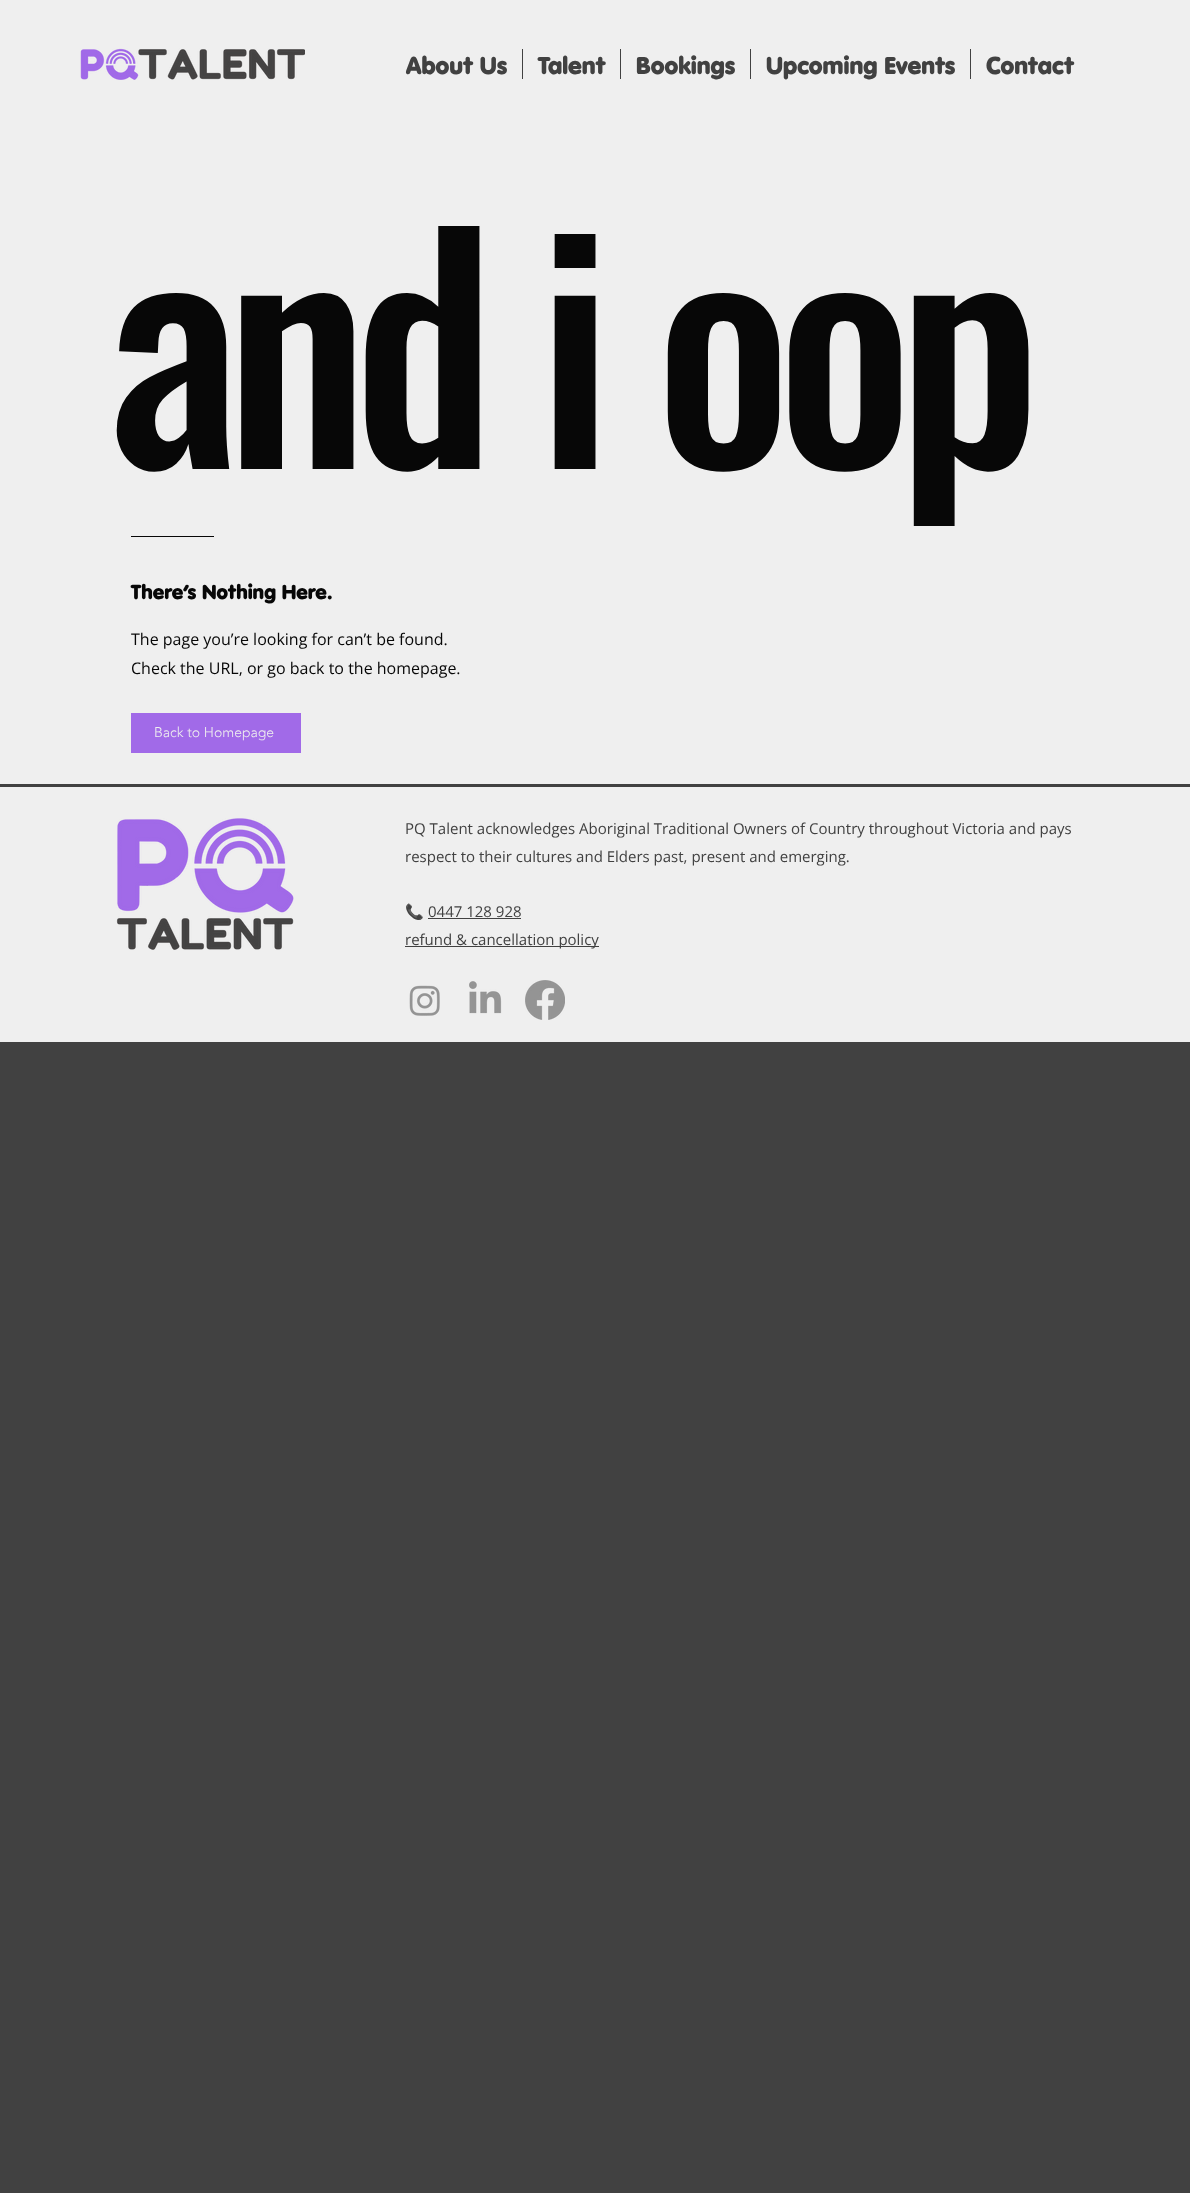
<svg xmlns="http://www.w3.org/2000/svg" width="1190" height="2193" viewBox="0 0 1190 2193">
  <rect width="100%" height="100%" fill="#414141"/>
  <path d="M0 0h1190v784H0z" fill="#efefef"/>
  <image x="80" y="48" width="225" height="32" href="img/1.png"/>
  <path d="M522 49h1v30H522z" fill="#414141"/>
  <path d="M620 49h1v30H620z" fill="#414141"/>
  <path d="M750 49h1v30H750z" fill="#414141"/>
  <path d="M970 49h1v30H970z" fill="#414141"/>
  <path d="M131 536h83v1H131z" fill="#070707"/>
  <path d="M131 713h170v40H131z" fill="#a16ae8"/>
  <path d="M0 787h1190v255H0z" fill="#efefef"/>
  <image x="116" y="818" width="178" height="132" href="img/2.png"/>
  <path d="M428 918h93v1H428z" fill="#414141"/>
  <path d="M405 946h194v1H405z" fill="#414141"/>
  <image x="409" y="985" width="31" height="31" href="img/3.png"/>
  <image x="469" y="981" width="33" height="33" href="img/4.png"/>
  <image x="525" y="980" width="40" height="40" href="img/5.png"/>
  <g font-family="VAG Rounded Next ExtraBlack" font-size="24" font-weight="800" fill="#414141">
    <text x="406" y="74">About Us</text>
    <text x="538" y="74">Talent</text>
    <text x="636" y="74">Bookings</text>
    <text x="766" y="74">Upcoming Events</text>
    <text x="986" y="74">Contact</text>
  </g>
  <text x="105" y="469" font-family="Oswald" font-size="300" font-weight="500" letter-spacing="-15" fill="#070707">and i oop</text>
  <text x="131" y="599" font-family="VAG Rounded Next ExtraBlack" font-size="20" font-weight="800" fill="#070707">There’s Nothing Here.</text>
  <g font-family="Open Sans" font-size="16" fill="#070707">
    <text x="131" y="645">The page you’re looking for can’t be found.</text>
    <text x="131" y="674">Check the URL, or go back to the homepage.</text>
  </g>
  <text x="154" y="737" font-family="'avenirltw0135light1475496'" font-size="14" font-weight="300" fill="#efefef">Back to Homepage</text>
  <g font-family="Open Sans" font-size="15" fill="#414141">
    <text x="405" y="834">PQ Talent acknowledges Aboriginal Traditional Owners of Country throughout Victoria and pays</text>
    <text x="405" y="862">respect to their cultures and Elders past, present and emerging.</text>
  </g>
  <text x="405" y="917" font-family="Noto Color Emoji" font-size="15" fill="#414141">📞</text>
  <g font-family="Open Sans" font-size="15" fill="#414141">
    <text x="428" y="917">0447 128 928</text>
    <text x="405" y="945">refund &amp; cancellation policy</text>
  </g>
</svg>
